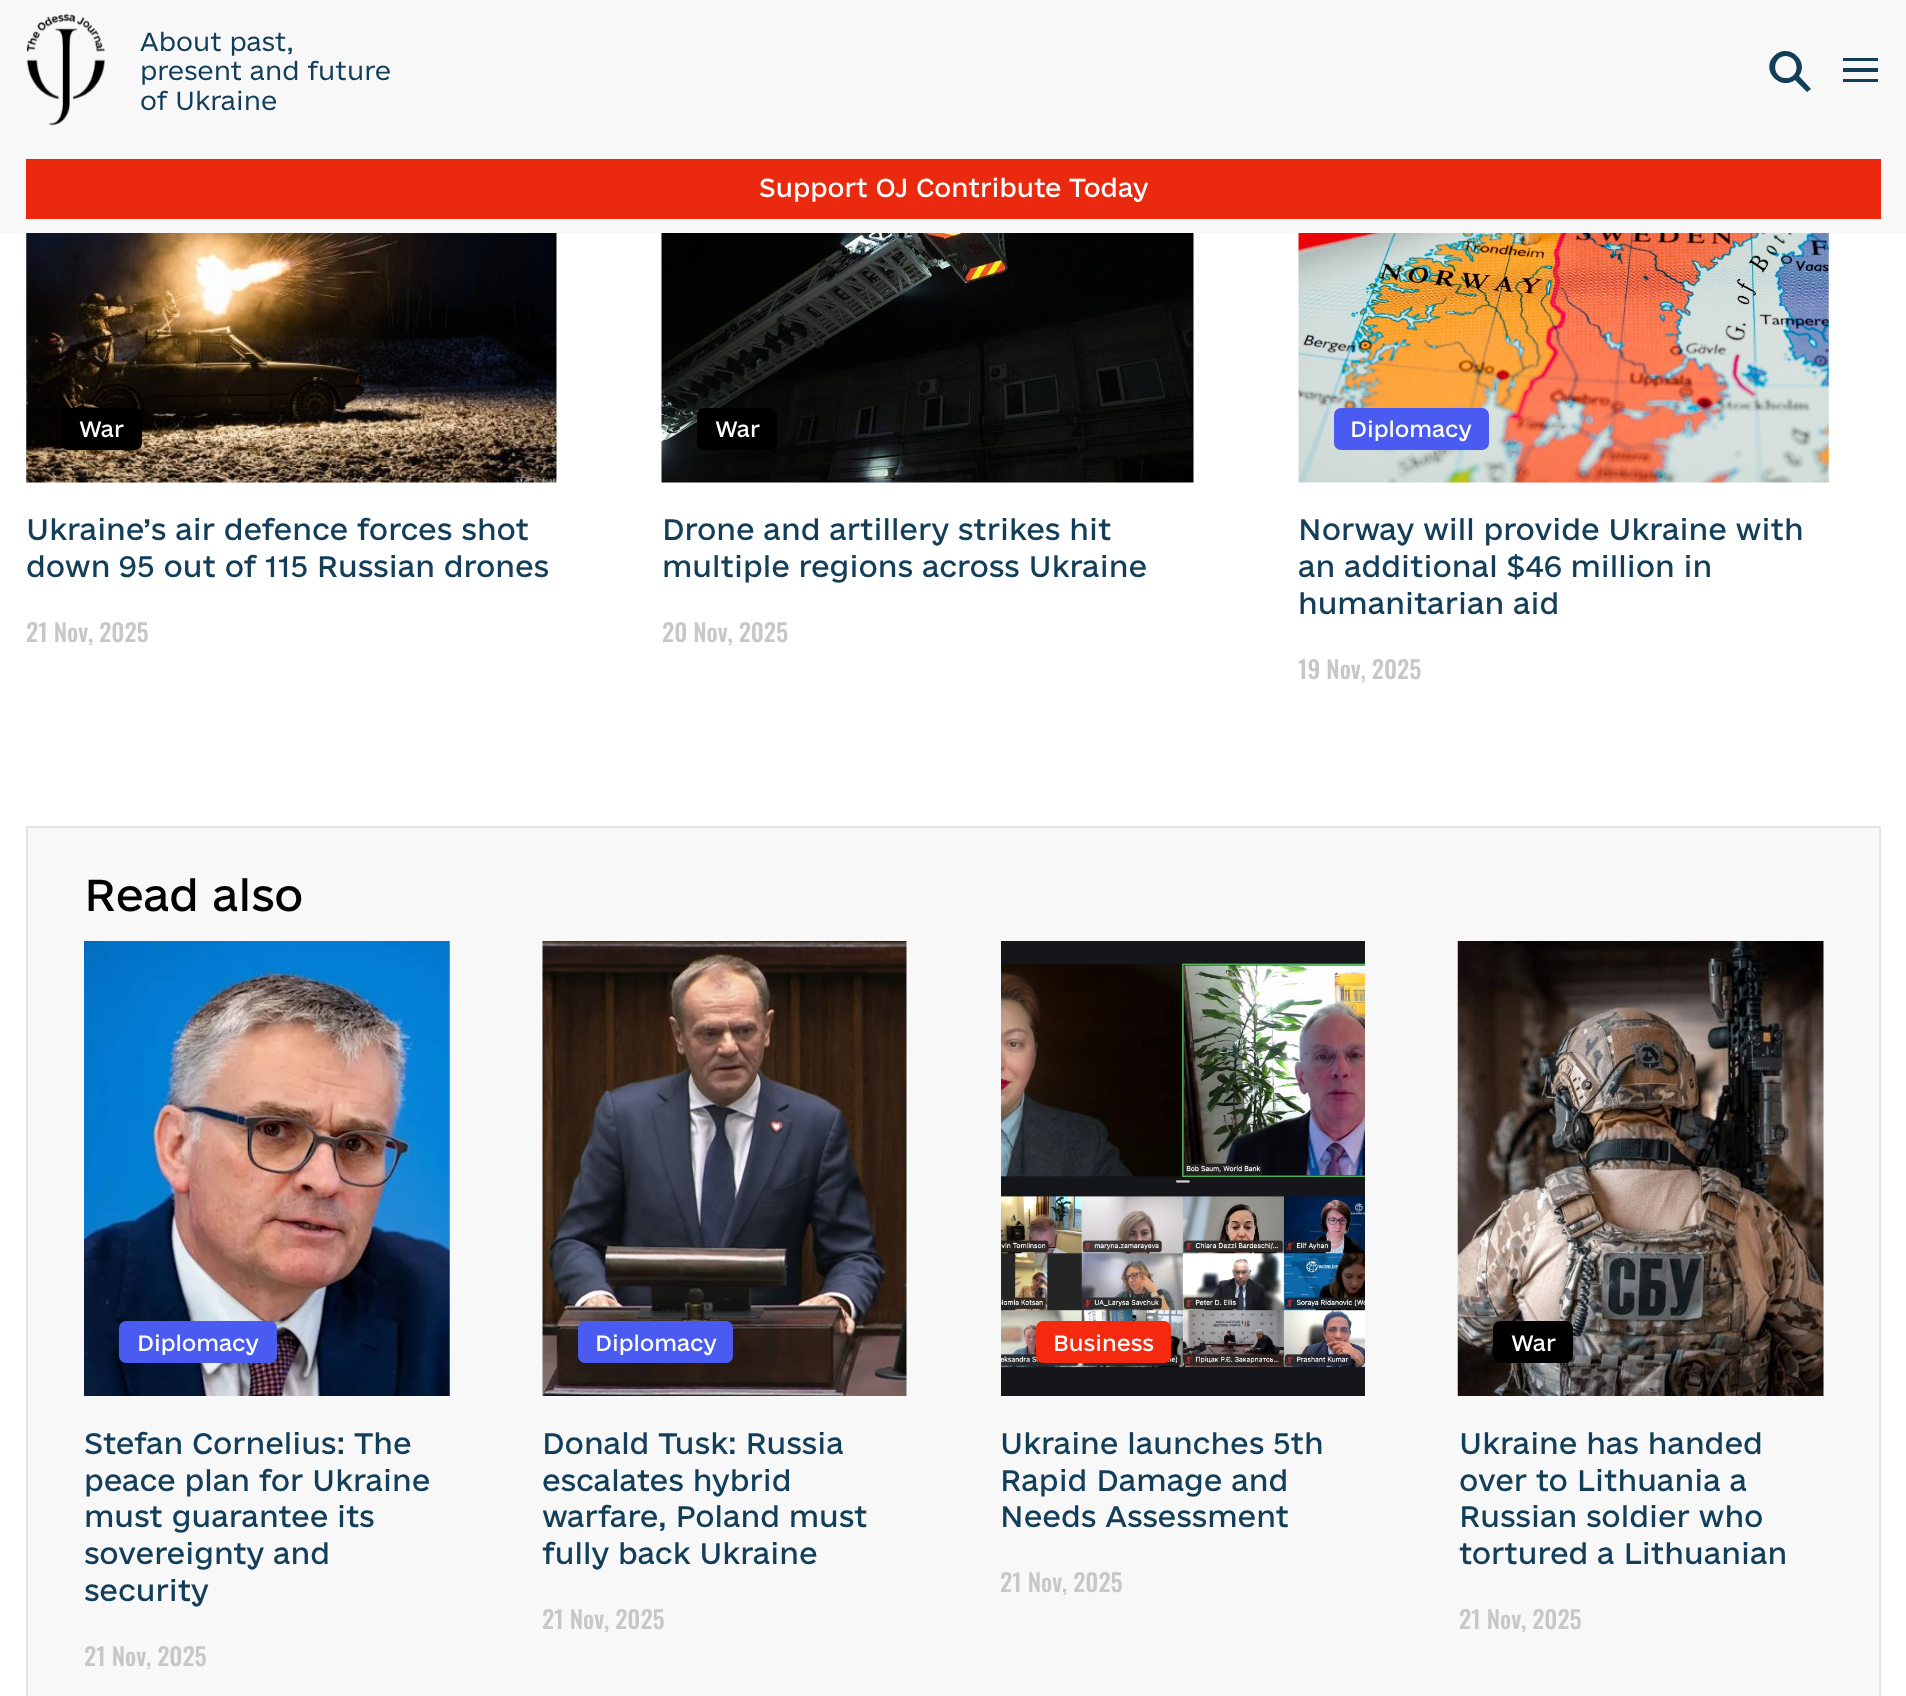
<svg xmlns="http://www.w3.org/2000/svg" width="1906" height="1696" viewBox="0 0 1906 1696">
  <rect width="100%" height="100%" fill="#fff"/>
  <path d="M0 0h1906v233H0z" fill="#f9f8f8"/>
  <image x="26" y="13" width="79" height="113" href="img/1.png"/>
  <path d="M1811 89L1799 76C1810 61 1788 42 1774 56C1760 70 1780 91 1795 80L1807 92ZM1786 78C1771 78 1772 56 1786 56C1800 57 1800 78 1786 78Z" fill="#123e59"/>
  <path d="M1843 58h35v3H1843z" fill="#123e59"/>
  <path d="M1843 68h35v4H1843z" fill="#123e59"/>
  <path d="M1843 79h35v3H1843z" fill="#123e59"/>
  <path d="M26 159h1855v60H26z" fill="#eb290f"/>
  <image x="26" y="233" width="531" height="250" href="img/2.png"/>
  <rect x="61" y="408" width="81" height="42" rx="7" fill="#000"/>
  <image x="661" y="233" width="533" height="250" href="img/3.png"/>
  <rect x="697" y="408" width="80" height="42" rx="7" fill="#000"/>
  <image x="1298" y="233" width="531" height="250" href="img/4.png"/>
  <rect x="1334" y="408" width="155" height="42" rx="7" fill="#4a5bf2"/>
  <path d="M27 827h1853v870H27z" fill="#f9f8f8" stroke="#e2e6e9" stroke-width="2"/>
  <image x="84" y="941" width="366" height="455" href="img/5.png"/>
  <rect x="119" y="1321" width="158" height="42" rx="7" fill="#4a5bf2"/>
  <image x="542" y="941" width="365" height="455" href="img/6.png"/>
  <rect x="578" y="1321" width="155" height="42" rx="7" fill="#4a5bf2"/>
  <image x="1001" y="941" width="364" height="455" href="img/7.png"/>
  <rect x="1036" y="1321" width="135" height="42" rx="7" fill="#f5290d"/>
  <image x="1457" y="941" width="367" height="455" href="img/8.png"/>
  <rect x="1493" y="1321" width="80" height="42" rx="7" fill="#000"/>
  <g font-family="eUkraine" font-size="24.5" font-weight="300" fill="#123e59">
    <text x="140" y="51">About past,</text>
    <text x="140" y="80">present and future</text>
    <text x="140" y="110">of Ukraine</text>
  </g>
  <text x="759" y="197" font-family="eUkraine" font-size="24.5" fill="#fff">Support OJ Contribute Today</text>
  <text x="79" y="437" font-family="eUkraine" font-size="21" fill="#fff">War</text>
  <g font-family="eUkraine" font-size="28" fill="#123e59">
    <text x="26" y="540">Ukraine’s air defence forces shot</text>
    <text x="26" y="577">down 95 out of 115 Russian drones</text>
  </g>
  <text x="26" y="642" font-family="Oswald" font-size="24.5" font-weight="500" fill="#c7c7c7">21 Nov, 2025</text>
  <text x="715" y="437" font-family="eUkraine" font-size="21" fill="#fff">War</text>
  <g font-family="eUkraine" font-size="28" fill="#123e59">
    <text x="662" y="540">Drone and artillery strikes hit</text>
    <text x="662" y="577">multiple regions across Ukraine</text>
  </g>
  <text x="662" y="642" font-family="Oswald" font-size="24.5" font-weight="500" fill="#c7c7c7">20 Nov, 2025</text>
  <text x="1350" y="437" font-family="eUkraine" font-size="21" fill="#fff">Diplomacy</text>
  <g font-family="eUkraine" font-size="28" fill="#123e59">
    <text x="1298" y="540">Norway will provide Ukraine with</text>
    <text x="1298" y="577">an additional $46 million in</text>
    <text x="1298" y="614">humanitarian aid</text>
  </g>
  <text x="1298" y="679" font-family="Oswald" font-size="24.5" font-weight="500" fill="#c7c7c7">19 Nov, 2025</text>
  <text x="84" y="911" font-family="eUkraine" font-size="42" fill="#000">Read also</text>
  <text x="137" y="1351" font-family="eUkraine" font-size="21" fill="#fff">Diplomacy</text>
  <g font-family="eUkraine" font-size="28" fill="#123e59">
    <text x="84" y="1454">Stefan Cornelius: The</text>
    <text x="84" y="1491">peace plan for Ukraine</text>
    <text x="84" y="1527">must guarantee its</text>
    <text x="84" y="1564">sovereignty and</text>
    <text x="84" y="1601">security</text>
  </g>
  <text x="84" y="1666" font-family="Oswald" font-size="24.5" font-weight="500" fill="#c7c7c7">21 Nov, 2025</text>
  <text x="595" y="1351" font-family="eUkraine" font-size="21" fill="#fff">Diplomacy</text>
  <g font-family="eUkraine" font-size="28" fill="#123e59">
    <text x="542" y="1454">Donald Tusk: Russia</text>
    <text x="542" y="1491">escalates hybrid</text>
    <text x="542" y="1527">warfare, Poland must</text>
    <text x="542" y="1564">fully back Ukraine</text>
  </g>
  <text x="542" y="1629" font-family="Oswald" font-size="24.5" font-weight="500" fill="#c7c7c7">21 Nov, 2025</text>
  <text x="1053" y="1351" font-family="eUkraine" font-size="21" fill="#fff">Business</text>
  <g font-family="eUkraine" font-size="28" fill="#123e59">
    <text x="1000" y="1454">Ukraine launches 5th</text>
    <text x="1000" y="1491">Rapid Damage and</text>
    <text x="1000" y="1527">Needs Assessment</text>
  </g>
  <text x="1000" y="1592" font-family="Oswald" font-size="24.5" font-weight="500" fill="#c7c7c7">21 Nov, 2025</text>
  <text x="1511" y="1351" font-family="eUkraine" font-size="21" fill="#fff">War</text>
  <g font-family="eUkraine" font-size="28" fill="#123e59">
    <text x="1459" y="1454">Ukraine has handed</text>
    <text x="1459" y="1491">over to Lithuania a</text>
    <text x="1459" y="1527">Russian soldier who</text>
    <text x="1459" y="1564">tortured a Lithuanian</text>
  </g>
  <text x="1459" y="1629" font-family="Oswald" font-size="24.5" font-weight="500" fill="#c7c7c7">21 Nov, 2025</text>
</svg>
